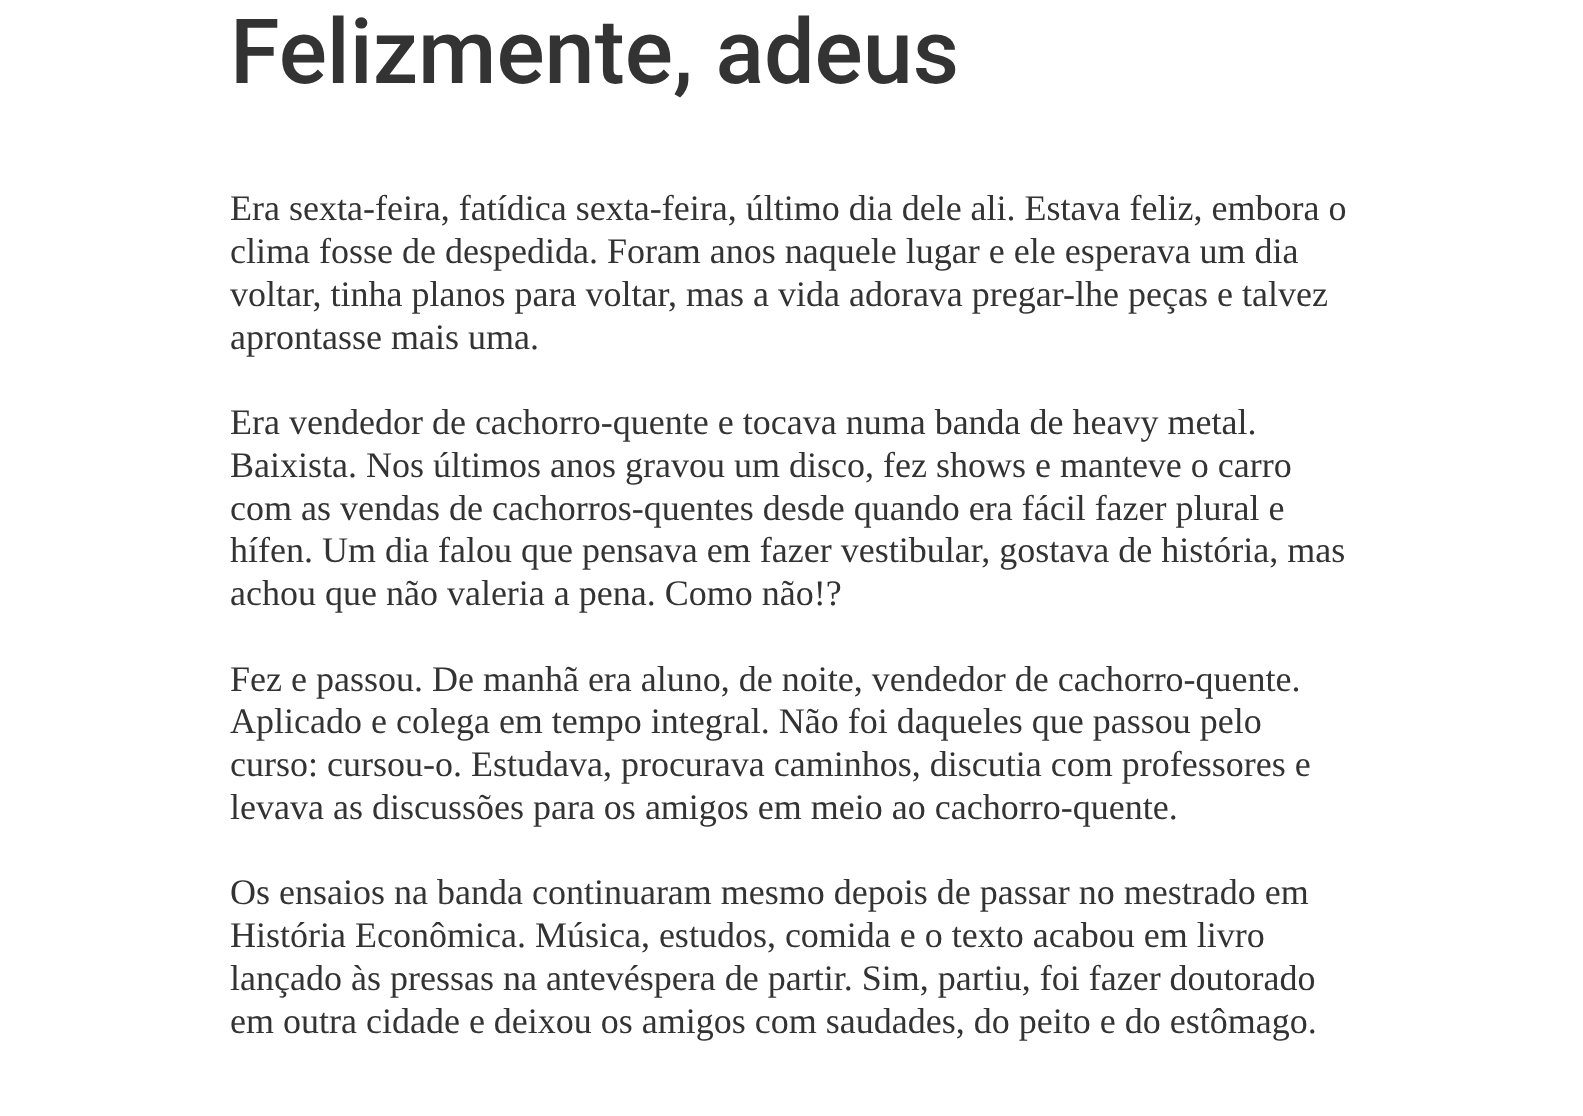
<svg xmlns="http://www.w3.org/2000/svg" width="1583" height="1116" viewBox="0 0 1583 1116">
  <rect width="100%" height="100%" fill="#fff"/>
  <text x="230" y="83" font-family="Roboto" font-size="90" font-weight="500" fill="#333">Felizmente, adeus</text>
  <g font-family="Liberation Serif" font-size="36" fill="#333">
    <text x="230" y="220">Era sexta-feira, fatídica sexta-feira, último dia dele ali. Estava feliz, embora o</text>
    <text x="230" y="263">clima fosse de despedida. Foram anos naquele lugar e ele esperava um dia</text>
    <text x="230" y="306">voltar, tinha planos para voltar, mas a vida adorava pregar-lhe peças e talvez</text>
    <text x="230" y="349">aprontasse mais uma.</text>
    <text x="230" y="434">Era vendedor de cachorro-quente e tocava numa banda de heavy metal.</text>
    <text x="230" y="477">Baixista. Nos últimos anos gravou um disco, fez shows e manteve o carro</text>
    <text x="230" y="520">com as vendas de cachorros-quentes desde quando era fácil fazer plural e</text>
    <text x="230" y="562">hífen. Um dia falou que pensava em fazer vestibular, gostava de história, mas</text>
    <text x="230" y="605">achou que não valeria a pena. Como não!?</text>
    <text x="230" y="691">Fez e passou. De manhã era aluno, de noite, vendedor de cachorro-quente.</text>
    <text x="230" y="733">Aplicado e colega em tempo integral. Não foi daqueles que passou pelo</text>
    <text x="230" y="776">curso: cursou-o. Estudava, procurava caminhos, discutia com professores e</text>
    <text x="230" y="819">levava as discussões para os amigos em meio ao cachorro-quente.</text>
    <text x="230" y="904">Os ensaios na banda continuaram mesmo depois de passar no mestrado em</text>
    <text x="230" y="947">História Econômica. Música, estudos, comida e o texto acabou em livro</text>
    <text x="230" y="990">lançado às pressas na antevéspera de partir. Sim, partiu, foi fazer doutorado</text>
    <text x="230" y="1033">em outra cidade e deixou os amigos com saudades, do peito e do estômago.</text>
  </g>
</svg>
